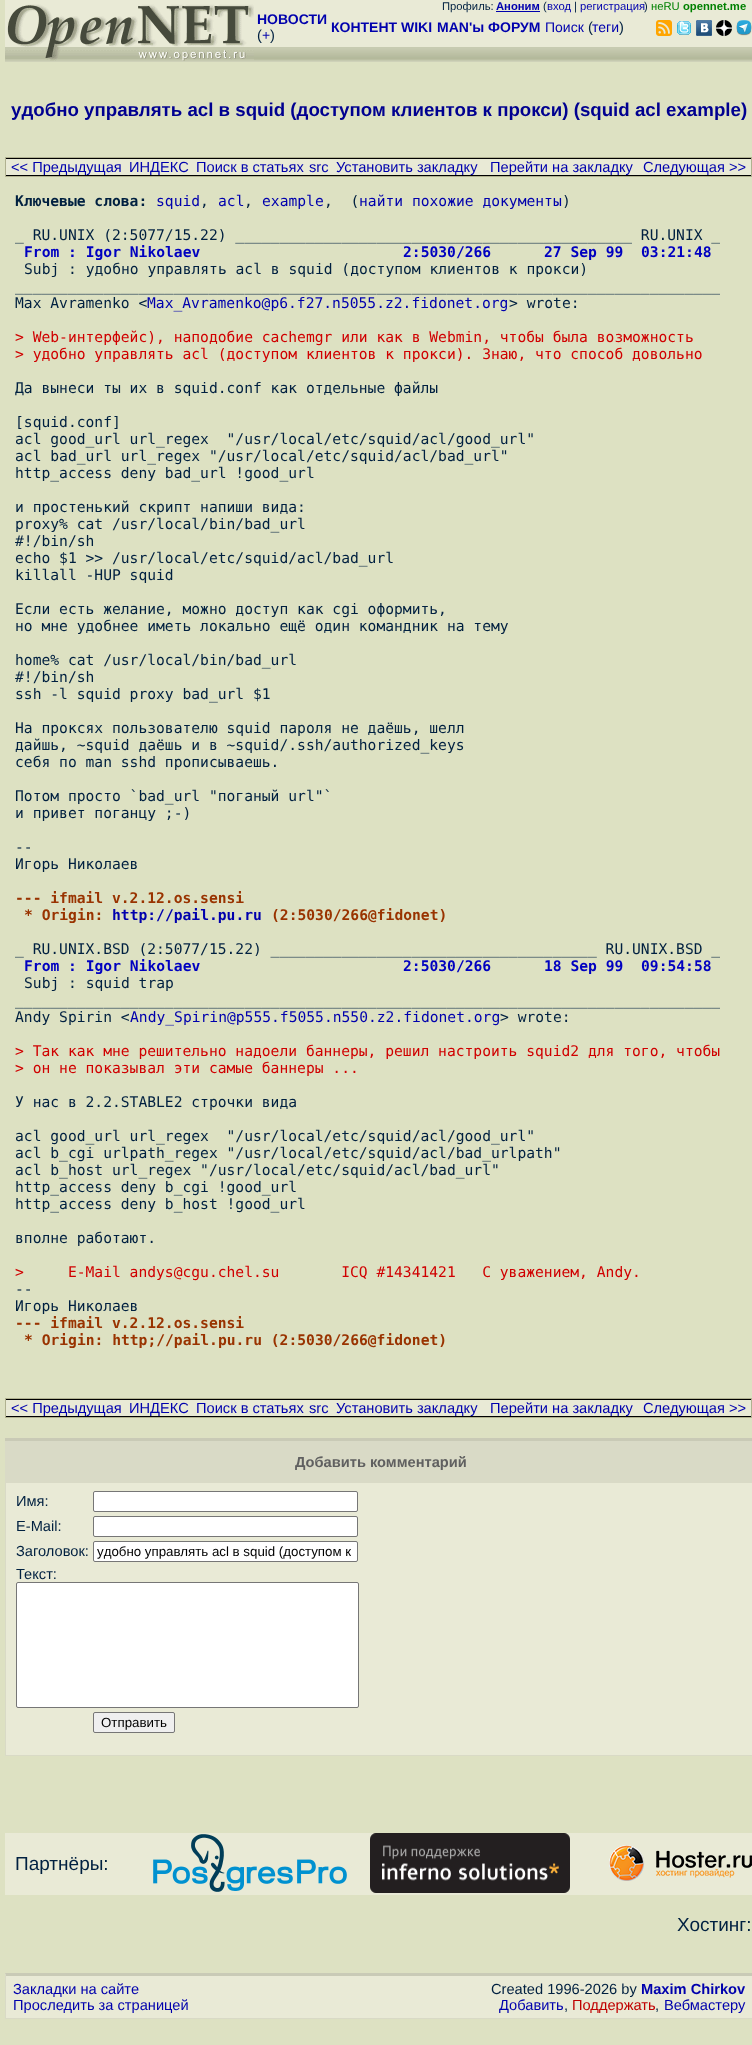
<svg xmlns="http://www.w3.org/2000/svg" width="752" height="2045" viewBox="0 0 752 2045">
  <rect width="100%" height="100%" fill="#dde1c2"/>
  <path d="M5 0h747v2H5z" fill="#e9ead6"/>
  <path d="M5 2h747v45H5z" fill="#e9ead6"/>
  <path d="M496 11h44v1H496z" fill="#0000ad"/>
  <image x="5" y="61" width="249" height="1" href="img/1.png"/>
  <image x="5" y="4" width="249" height="57" href="img/2.png"/>
  <image x="254" y="47" width="373" height="15" href="img/3.png"/>
  <image x="627" y="47" width="125" height="15" href="img/4.png"/>
  <image x="656" y="20" width="16" height="16" href="img/5.png"/>
  <image x="677" y="21" width="14" height="14" href="img/6.png"/>
  <image x="696" y="20" width="16" height="16" href="img/7.png"/>
  <image x="716" y="20" width="16" height="16" href="img/8.png"/>
  <image x="736" y="20" width="16" height="16" href="img/9.png"/>
  <path d="M5 157h747v20H5z" fill="#b0b190"/>
  <path d="M6 159h745v16H6z" fill="#e9ead6"/>
  <path d="M6 158h745v1H6z" fill="#000"/>
  <path d="M6 175h745v1H6z" fill="#000"/>
  <path d="M5 1398h747v20H5z" fill="#b0b190"/>
  <path d="M6 1400h745v16H6z" fill="#e9ead6"/>
  <path d="M6 1399h745v1H6z" fill="#000"/>
  <path d="M6 1416h745v1H6z" fill="#000"/>
  <path d="M5 1441h747v42H5z" fill="#d9dac6"/>
  <path d="M5 1438h747v3H5z" fill="#c9cab6"/>
  <path d="M6 1483h746v272H6z" fill="#e9ead6"/>
  <path d="M5 1755h747v1H5z" fill="#d9dac6"/>
  <path d="M5 1483h1v273H5z" fill="#d9dac6"/>
  <rect x="93.5" y="1491.5" width="264" height="20" rx="1.5" fill="#fff" stroke="#767676"/>
  <rect x="93.5" y="1516.5" width="264" height="20" rx="1.5" fill="#fff" stroke="#767676"/>
  <rect x="93.5" y="1541.5" width="264" height="20" rx="1.5" fill="#fff" stroke="#767676"/>
  <rect x="16.5" y="1582.5" width="342" height="125" rx="1.5" fill="#fff" stroke="#767676"/>
  <rect x="93.5" y="1712.5" width="81" height="20" rx="1.5" fill="#efefef" stroke="#767676"/>
  <path d="M5 1833h747v62H5z" fill="#e9ead6"/>
  <image x="153" y="1834" width="194" height="58" href="img/10.png"/>
  <image x="370" y="1833" width="200" height="60" href="img/11.png"/>
  <image x="609" y="1845" width="143" height="36" href="img/12.png"/>
  <path d="M5 1973h747v45H5z" fill="#e9ead6"/>
  <path d="M5 1973H752V1976H6Z" fill="#c9cab6"/>
  <path d="M5 2018h747v1H5z" fill="#d9dac6"/>
  <path d="M5 2019V1973L6 1976V2018Z" fill="#d9dac6"/>
  <text x="442" y="10" font-family="Liberation Sans" font-size="11.25" fill="#002040">Профиль:</text>
  <text x="496" y="10" font-family="Liberation Sans" font-size="11.25" font-weight="bold" fill="#0000ad">Аноним</text>
  <text x="543" y="10" font-family="Liberation Sans" font-size="11.25" fill="#002040">(</text>
  <text x="547" y="10" font-family="Liberation Sans" font-size="11.25" fill="#0000ad">вход</text>
  <text x="574" y="10" font-family="Liberation Sans" font-size="11.25" fill="#002040">|</text>
  <text x="580" y="10" font-family="Liberation Sans" font-size="11.25" fill="#0000ad">регистрация</text>
  <text x="644" y="10" font-family="Liberation Sans" font-size="11.25" fill="#002040">)</text>
  <text x="651" y="10" font-family="Liberation Sans" font-size="11.25" fill="#008000">неRU</text>
  <text x="683" y="10" font-family="Liberation Sans" font-size="11.25" font-weight="bold" fill="#008000">opennet.me</text>
  <text x="257" y="24" font-family="Liberation Sans" font-size="14" font-weight="bold" fill="#0000ad">НОВОСТИ</text>
  <text x="257" y="40" font-family="Liberation Sans" font-size="14.65" fill="#002040">(</text>
  <text x="262" y="40" font-family="Liberation Sans" font-size="14" fill="#0000ad">+</text>
  <text x="270" y="40" font-family="Liberation Sans" font-size="14.65" fill="#002040">)</text>
  <g font-family="Liberation Sans" font-size="14" font-weight="bold" fill="#0000ad">
    <text x="331" y="32">КОНТЕНТ WIKI</text>
    <text x="437" y="32">MAN'ы ФОРУМ</text>
  </g>
  <text x="545" y="32" font-family="Liberation Sans" font-size="14" fill="#0000ad">Поиск</text>
  <text x="588" y="32" font-family="Liberation Sans" font-size="14.65" fill="#002040">(</text>
  <text x="592" y="32" font-family="Liberation Sans" font-size="14" fill="#0000ad">теги</text>
  <text x="619" y="32" font-family="Liberation Sans" font-size="14.65" fill="#002040">)</text>
  <text x="11" y="116" font-family="Liberation Sans" font-size="18.7" font-weight="bold" fill="#000090">yдобно yпpавлять acl в squid (достyпом клиентов к пpокси) (squid acl example)</text>
  <g font-family="Liberation Sans" font-size="14.65" fill="#0000ad">
    <text x="11" y="172">&lt;&lt; Предыдущая</text>
    <text x="129" y="172">ИНДЕКС</text>
    <text x="196" y="172">Поиск в статьях</text>
    <text x="309" y="172">src</text>
    <text x="336" y="172">Установить закладку</text>
    <text x="490" y="172">Перейти на закладку</text>
    <text x="643" y="172">Следующая &gt;&gt;</text>
  </g>
  <text x="15" y="206" font-family="DejaVu Sans Mono" font-size="14.65" font-weight="bold" fill="#002040">Ключевые слова:</text>
  <text x="156" y="206" font-family="DejaVu Sans Mono" font-size="14.65" fill="#0000ad">squid</text>
  <text x="200" y="206" font-family="DejaVu Sans Mono" font-size="14.65" fill="#002040">,</text>
  <text x="218" y="206" font-family="DejaVu Sans Mono" font-size="14.65" fill="#0000ad">acl</text>
  <text x="244" y="206" font-family="DejaVu Sans Mono" font-size="14.65" fill="#002040">,</text>
  <text x="262" y="206" font-family="DejaVu Sans Mono" font-size="14.65" fill="#0000ad">example</text>
  <text x="324" y="206" font-family="DejaVu Sans Mono" font-size="14.65" fill="#002040" xml:space="preserve">,  (</text>
  <text x="359" y="206" font-family="DejaVu Sans Mono" font-size="14.65" fill="#0000ad">найти похожие документы</text>
  <g font-family="DejaVu Sans Mono" font-size="14.65" fill="#002040">
    <text x="562" y="206">)</text>
    <text x="15" y="240">_ RU.UNIX (2:5077/15.22) _____________________________________________ RU.UNIX _</text>
  </g>
  <text x="24" y="257" font-family="DejaVu Sans Mono" font-size="14.65" font-weight="bold" fill="#0000c0" xml:space="preserve">From : Igor Nikolaev                       2:5030/266      27 Sep 99  03:21:48</text>
  <g font-family="DejaVu Sans Mono" font-size="14.65" fill="#002040">
    <text x="24" y="274">Subj : yдобно yпpавлять acl в squid (достyпом клиентов к пpокси)</text>
    <text x="15" y="291">________________________________________________________________________________</text>
    <text x="15" y="308">Max Avramenko &lt;</text>
  </g>
  <text x="147" y="308" font-family="DejaVu Sans Mono" font-size="14.65" fill="#0000ad">Max_Avramenko@p6.f27.n5055.z2.fidonet.org</text>
  <text x="509" y="308" font-family="DejaVu Sans Mono" font-size="14.65" fill="#002040">&gt; wrote:</text>
  <g font-family="DejaVu Sans Mono" font-size="14.65" fill="#d00000">
    <text x="15" y="342">&gt; Web-интеpфейс), наподобие cachemgr или как в Webmin, чтобы была возможность</text>
    <text x="15" y="359">&gt; yдобно yпpавлять acl (достyпом клиентов к пpокси). Знаю, что способ довольно</text>
  </g>
  <g font-family="DejaVu Sans Mono" font-size="14.65" fill="#002040">
    <text x="15" y="393">Да вынеси ты их в squid.conf как отдельные файлы</text>
    <text x="15" y="427">[squid.conf]</text>
    <text x="15" y="444" xml:space="preserve">acl good_url url_regex  "/usr/local/etc/squid/acl/good_url"</text>
    <text x="15" y="461">acl bad_url url_regex "/usr/local/etc/squid/acl/bad_url"</text>
    <text x="15" y="478">http_access deny bad_url !good_url</text>
    <text x="15" y="512">и простенький скрипт напиши вида:</text>
    <text x="15" y="529">proxy% cat /usr/local/bin/bad_url</text>
    <text x="15" y="546">#!/bin/sh</text>
    <text x="15" y="563">echo $1 &gt;&gt; /usr/local/etc/squid/acl/bad_url</text>
    <text x="15" y="580">killall -HUP squid</text>
    <text x="15" y="614">Если есть желание, можно доступ как cgi оформить,</text>
    <text x="15" y="631">но мне удобнее иметь локально ещё один командник на тему</text>
    <text x="15" y="665">home% cat /usr/local/bin/bad_url</text>
    <text x="15" y="682">#!/bin/sh</text>
    <text x="15" y="699">ssh -l squid proxy bad_url $1</text>
    <text x="15" y="733">Hа проксях пользователю squid пароля не даёшь, шелл</text>
    <text x="15" y="750">дайшь, ~squid даёшь и в ~squid/.ssh/authorized_keys</text>
    <text x="15" y="767">себя по man sshd прописываешь.</text>
    <text x="15" y="801">Потом просто `bad_url "поганый url"`</text>
    <text x="15" y="818">и привет поганцу ;-)</text>
    <text x="15" y="852">--</text>
    <text x="15" y="869">Игорь Hиколаев</text>
  </g>
  <g font-family="DejaVu Sans Mono" font-size="14.65" font-weight="bold" fill="#930">
    <text x="15" y="903">--- ifmail v.2.12.os.sensi</text>
    <text x="24" y="920">* Origin:</text>
  </g>
  <text x="112" y="920" font-family="DejaVu Sans Mono" font-size="14.65" font-weight="bold" fill="#0000ad">http://pail.pu.ru</text>
  <text x="271" y="920" font-family="DejaVu Sans Mono" font-size="14.65" font-weight="bold" fill="#930">(2:5030/266@fidonet)</text>
  <text x="15" y="954" font-family="DejaVu Sans Mono" font-size="14.65" fill="#002040">_ RU.UNIX.BSD (2:5077/15.22) _____________________________________ RU.UNIX.BSD _</text>
  <text x="24" y="971" font-family="DejaVu Sans Mono" font-size="14.65" font-weight="bold" fill="#0000c0" xml:space="preserve">From : Igor Nikolaev                       2:5030/266      18 Sep 99  09:54:58</text>
  <g font-family="DejaVu Sans Mono" font-size="14.65" fill="#002040">
    <text x="24" y="988">Subj : squid trap</text>
    <text x="15" y="1005">________________________________________________________________________________</text>
    <text x="15" y="1022">Andy Spirin &lt;</text>
  </g>
  <text x="130" y="1022" font-family="DejaVu Sans Mono" font-size="14.65" fill="#0000ad">Andy_Spirin@p555.f5055.n550.z2.fidonet.org</text>
  <text x="500" y="1022" font-family="DejaVu Sans Mono" font-size="14.65" fill="#002040">&gt; wrote:</text>
  <g font-family="DejaVu Sans Mono" font-size="14.65" fill="#d00000">
    <text x="15" y="1056">&gt; Так как мне pешительно надоели баннеpы, pешил настpоить squid2 для того, чтобы</text>
    <text x="15" y="1073">&gt; он не показывал эти самые баннеpы ...</text>
  </g>
  <g font-family="DejaVu Sans Mono" font-size="14.65" fill="#002040">
    <text x="15" y="1107">У нас в 2.2.STABLE2 строчки вида</text>
    <text x="15" y="1141" xml:space="preserve">acl good_url url_regex  "/usr/local/etc/squid/acl/good_url"</text>
    <text x="15" y="1158">acl b_cgi urlpath_regex "/usr/local/etc/squid/acl/bad_urlpath"</text>
    <text x="15" y="1175">acl b_host url_regex "/usr/local/etc/squid/acl/bad_url"</text>
    <text x="15" y="1192">http_access deny b_cgi !good_url</text>
    <text x="15" y="1209">http_access deny b_host !good_url</text>
    <text x="15" y="1243">вполне работают.</text>
  </g>
  <text x="15" y="1277" font-family="DejaVu Sans Mono" font-size="14.65" fill="#d00000" xml:space="preserve">&gt;     E-Mail andys@cgu.chel.su       ICQ #14341421   С уважением, Andy.</text>
  <g font-family="DejaVu Sans Mono" font-size="14.65" fill="#002040">
    <text x="15" y="1294">--</text>
    <text x="15" y="1311">Игорь Hиколаев</text>
  </g>
  <g font-family="DejaVu Sans Mono" font-size="14.65" font-weight="bold" fill="#930">
    <text x="15" y="1328">--- ifmail v.2.12.os.sensi</text>
    <text x="24" y="1345">* Origin: http;//pail.pu.ru (2:5030/266@fidonet)</text>
  </g>
  <g font-family="Liberation Sans" font-size="14.65" fill="#0000ad">
    <text x="11" y="1413">&lt;&lt; Предыдущая</text>
    <text x="129" y="1413">ИНДЕКС</text>
    <text x="196" y="1413">Поиск в статьях</text>
    <text x="309" y="1413">src</text>
    <text x="336" y="1413">Установить закладку</text>
    <text x="490" y="1413">Перейти на закладку</text>
    <text x="643" y="1413">Следующая &gt;&gt;</text>
  </g>
  <text x="295" y="1467" font-family="Liberation Sans" font-size="14.65" font-weight="bold" fill="#606060">Добавить комментарий</text>
  <g font-family="Liberation Sans" font-size="14.65" fill="#002040">
    <text x="16" y="1506">Имя:</text>
    <text x="16" y="1531">E-Mail:</text>
    <text x="16" y="1556">Заголовок:</text>
  </g>
  <text x="97" y="1556" font-family="Liberation Sans" font-size="13.3" fill="#000">yдобно yпpавлять acl в squid (достyпом к</text>
  <text x="16" y="1579" font-family="Liberation Sans" font-size="14.65" fill="#002040">Текст:</text>
  <text x="101" y="1727" font-family="Liberation Sans" font-size="13.3" fill="#000">Отправить</text>
  <g font-family="Liberation Sans" font-size="19" fill="#002040">
    <text x="15" y="1870">Партнёры:</text>
    <text x="677" y="1931">Хостинг:</text>
  </g>
  <g font-family="Liberation Sans" font-size="14.65" fill="#0000ad">
    <text x="13" y="1994">Закладки на сайте</text>
    <text x="13" y="2010">Проследить за страницей</text>
  </g>
  <text x="491" y="1994" font-family="Liberation Sans" font-size="14.65" fill="#002040">Created 1996-2026 by</text>
  <text x="641" y="1994" font-family="Liberation Sans" font-size="14.65" font-weight="bold" fill="#0000ad">Maxim Chirkov</text>
  <text x="499" y="2010" font-family="Liberation Sans" font-size="14.65" fill="#0000ad">Добавить</text>
  <text x="564" y="2010" font-family="Liberation Sans" font-size="14.65" fill="#002040">,</text>
  <text x="572" y="2010" font-family="Liberation Sans" font-size="14.65" fill="#c00000">Поддержать</text>
  <text x="655" y="2010" font-family="Liberation Sans" font-size="14.65" fill="#002040">,</text>
  <text x="664" y="2010" font-family="Liberation Sans" font-size="14.65" fill="#0000ad">Вебмастеру</text>
</svg>
